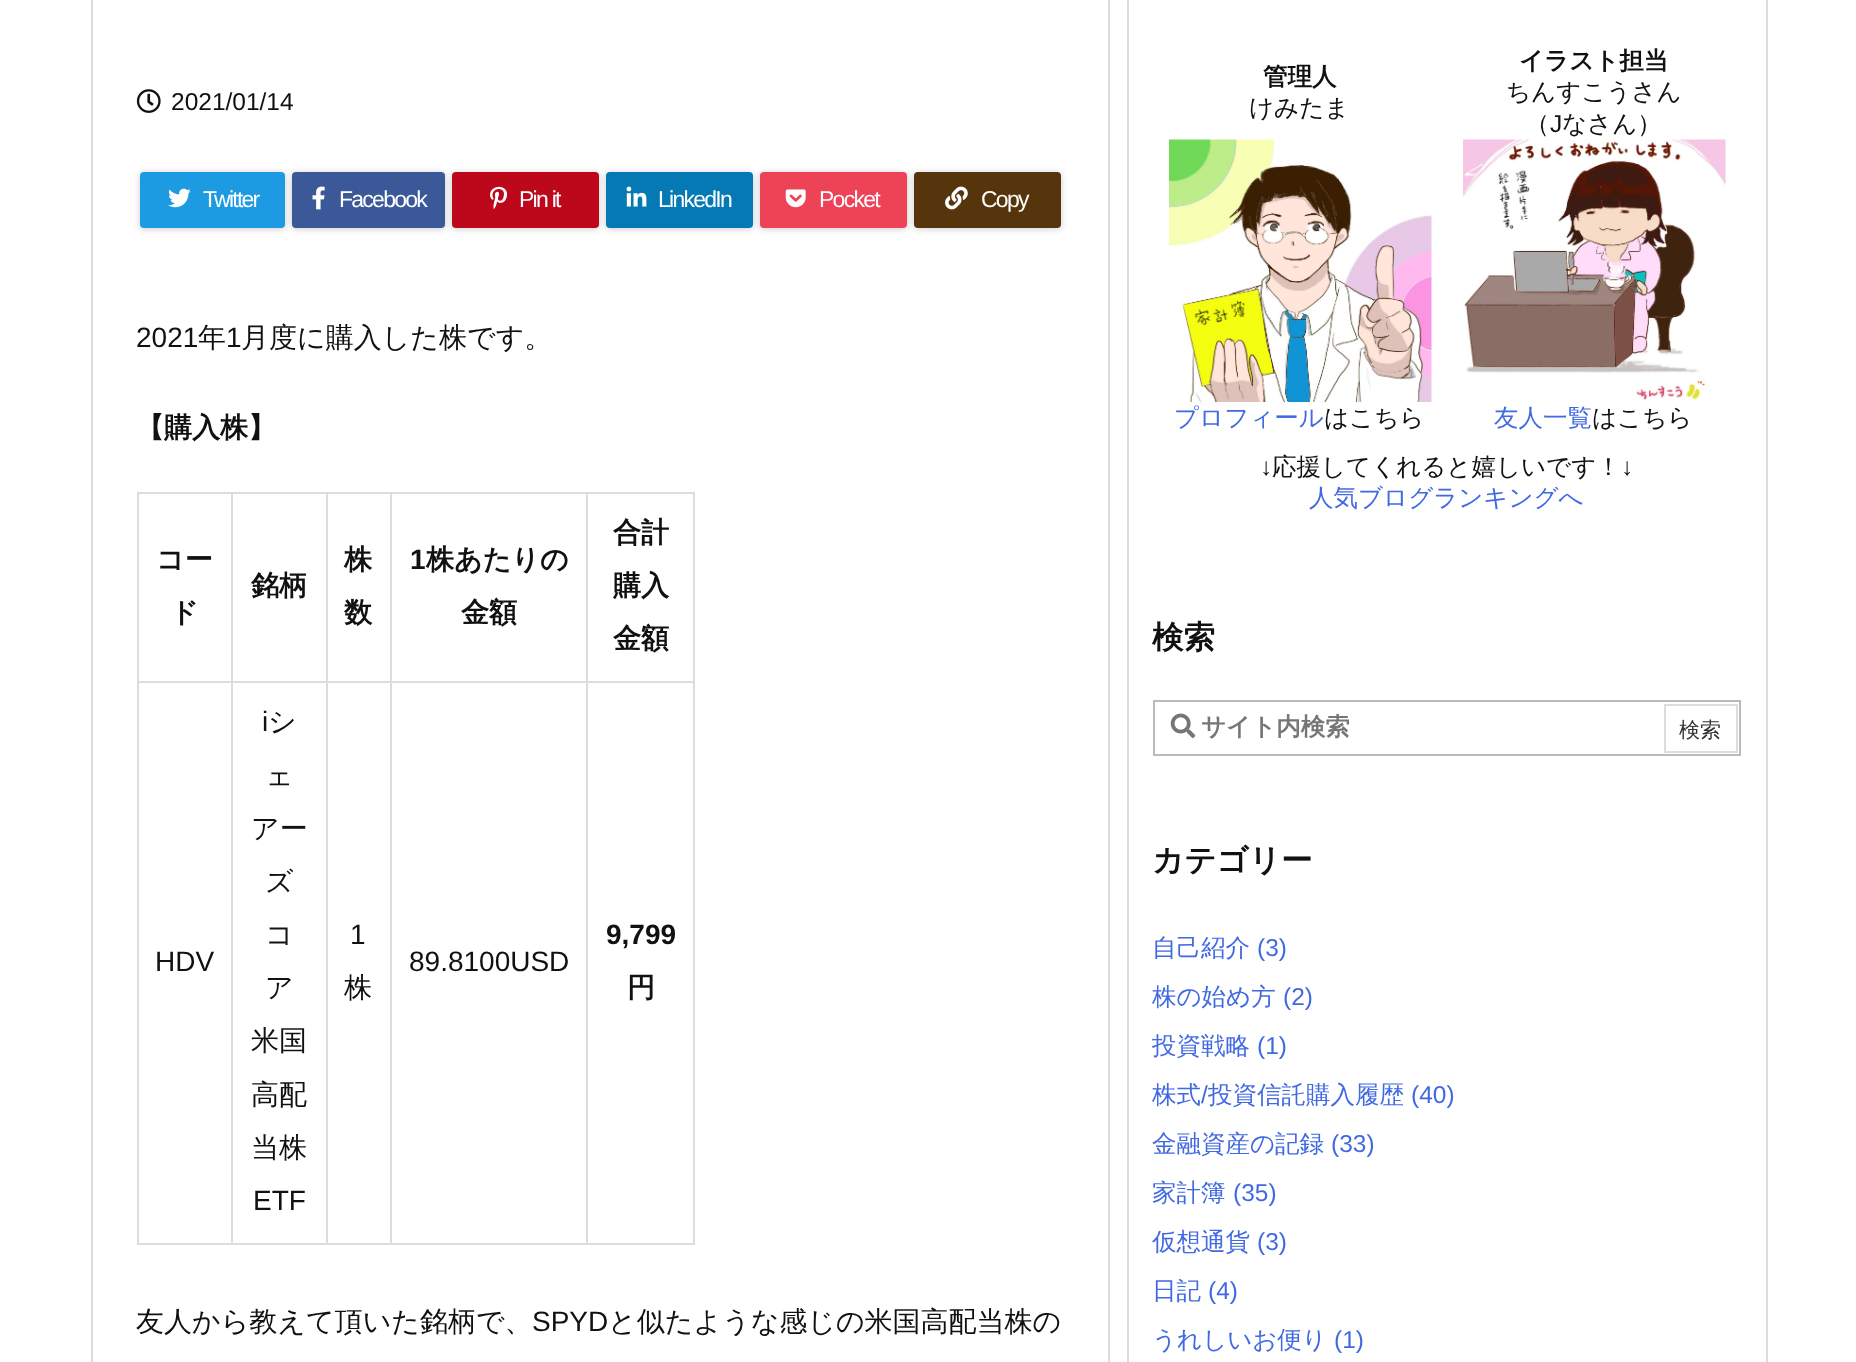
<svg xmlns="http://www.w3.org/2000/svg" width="1856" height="1362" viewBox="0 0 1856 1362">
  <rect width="100%" height="100%" fill="#fff"/>
  <path d="M92 -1h1017v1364H92z" fill="none" stroke="#ddd" stroke-width="2"/>
  <image x="136" y="89" width="25" height="24" href="img/1.png"/>
  <rect x="140" y="173" width="145" height="56" rx="4" fill="#00000033" filter="blur(3.5px)"/>
  <rect x="140" y="172" width="145" height="56" rx="4" fill="#1c9be2"/>
  <image x="168" y="188" width="23" height="20" href="img/2.png"/>
  <rect x="292" y="173" width="153" height="56" rx="4" fill="#00000033" filter="blur(3.5px)"/>
  <rect x="292" y="172" width="153" height="56" rx="4" fill="#3b5998"/>
  <image x="312" y="186" width="13" height="24" href="img/3.png"/>
  <rect x="452" y="173" width="147" height="56" rx="4" fill="#00000033" filter="blur(3.5px)"/>
  <rect x="452" y="172" width="147" height="56" rx="4" fill="#bd081c"/>
  <image x="490" y="186" width="18" height="23" href="img/4.png"/>
  <rect x="606" y="173" width="147" height="56" rx="4" fill="#00000033" filter="blur(3.5px)"/>
  <rect x="606" y="172" width="147" height="56" rx="4" fill="#0479b4"/>
  <image x="626" y="186" width="21" height="21" href="img/5.png"/>
  <rect x="760" y="173" width="147" height="56" rx="4" fill="#00000033" filter="blur(3.5px)"/>
  <rect x="760" y="172" width="147" height="56" rx="4" fill="#ee4257"/>
  <image x="785" y="189" width="21" height="19" href="img/6.png"/>
  <rect x="914" y="173" width="147" height="56" rx="4" fill="#00000033" filter="blur(3.5px)"/>
  <rect x="914" y="172" width="147" height="56" rx="4" fill="#56350d"/>
  <image x="945" y="186" width="23" height="24" href="img/7.png"/>
  <path d="M586 492h109v2H586z" fill="#ddd"/>
  <path d="M586 681h109v2H586z" fill="#ddd"/>
  <path d="M693 681h2v563H693z" fill="#ddd"/>
  <path d="M586 1243h109v2H586z" fill="#ddd"/>
  <path d="M586 681h2v563H586z" fill="#ddd"/>
  <path d="M390 681h198v2H390z" fill="#ddd"/>
  <path d="M586 492h2v191H586z" fill="#ddd"/>
  <path d="M390 492h198v2H390z" fill="#ddd"/>
  <path d="M390 1243h198v2H390z" fill="#ddd"/>
  <path d="M390 681h2v563H390z" fill="#ddd"/>
  <path d="M326 681h66v2H326z" fill="#ddd"/>
  <path d="M390 492h2v191H390z" fill="#ddd"/>
  <path d="M326 492h66v2H326z" fill="#ddd"/>
  <path d="M326 1243h66v2H326z" fill="#ddd"/>
  <path d="M326 681h2v563H326z" fill="#ddd"/>
  <path d="M231 681h96v2H231z" fill="#ddd"/>
  <path d="M326 492h2v191H326z" fill="#ddd"/>
  <path d="M231 492h96v2H231z" fill="#ddd"/>
  <path d="M231 1243h96v2H231z" fill="#ddd"/>
  <path d="M231 681h2v563H231z" fill="#ddd"/>
  <path d="M137 681h96v2H137z" fill="#ddd"/>
  <path d="M231 492h2v191H231z" fill="#ddd"/>
  <path d="M137 492h96v2H137z" fill="#ddd"/>
  <path d="M137 1243h96v2H137z" fill="#ddd"/>
  <path d="M137 681h2v563H137z" fill="#ddd"/>
  <path d="M137 492h2v191H137z" fill="#ddd"/>
  <path d="M693 492h2v191H693z" fill="#ddd"/>
  <path d="M1128 -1h639v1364H1128z" fill="none" stroke="#ddd" stroke-width="2"/>
  <image x="1169" y="139" width="263" height="263" href="img/8.png"/>
  <image x="1463" y="139" width="263" height="262" href="img/9.png"/>
  <path d="M1154 701h586v54H1154z" fill="none" stroke="#bbb" stroke-width="2"/>
  <image x="1170" y="713" width="26" height="25" href="img/10.png"/>
  <path d="M1665 705h72v47H1665z" fill="none" stroke="#ddd" stroke-width="2"/>
  <text x="171" y="110" font-family="Liberation Sans" font-size="24.5" fill="#111">2021/01/14</text>
  <g font-family="Liberation Sans" font-size="23" letter-spacing="-1.75" fill="#fff">
    <text x="203" y="207">Twitter</text>
    <text x="339" y="207">Facebook</text>
    <text x="519" y="207">Pin it</text>
    <text x="658" y="207">LinkedIn</text>
    <text x="819" y="207">Pocket</text>
    <text x="981" y="207">Copy</text>
  </g>
  <text x="136" y="347" font-family="Liberation Sans" font-size="28" fill="#111">2021</text>
  <text x="198" y="347" font-family="WenQuanYi Zen Hei" font-size="28" font-weight="500" fill="#111">年</text>
  <text x="226" y="347" font-family="Liberation Sans" font-size="28" fill="#111">1</text>
  <text x="241" y="347" font-family="WenQuanYi Zen Hei" font-size="28" font-weight="500" fill="#111">月度に購入した株です。</text>
  <g font-family="WenQuanYi Zen Hei" font-size="28" font-weight="bold" fill="#111">
    <text x="136" y="437">【購入株】</text>
    <text x="156" y="569">コー</text>
    <text x="170" y="622">ド</text>
    <text x="251" y="595">銘柄</text>
    <text x="344" y="569">株</text>
    <text x="344" y="622">数</text>
  </g>
  <text x="410" y="569" font-family="Liberation Sans" font-size="28" font-weight="bold" fill="#111">1</text>
  <g font-family="WenQuanYi Zen Hei" font-size="28" font-weight="bold" fill="#111">
    <text x="426" y="569">株あたりの</text>
    <text x="461" y="622">金額</text>
    <text x="613" y="542">合計</text>
    <text x="613" y="595">購入</text>
    <text x="613" y="648">金額</text>
  </g>
  <g font-family="Liberation Sans" font-size="28" fill="#111">
    <text x="155" y="971">HDV</text>
    <text x="262" y="731">i</text>
  </g>
  <g font-family="WenQuanYi Zen Hei" font-size="28" font-weight="500" fill="#111">
    <text x="268" y="731">シ</text>
    <text x="265" y="785">ェ</text>
    <text x="251" y="838">アー</text>
    <text x="265" y="891">ズ</text>
    <text x="265" y="944">コ</text>
    <text x="265" y="997">ア</text>
    <text x="251" y="1050">米国</text>
    <text x="251" y="1104">高配</text>
    <text x="251" y="1157">当株</text>
  </g>
  <g font-family="Liberation Sans" font-size="28" fill="#111">
    <text x="253" y="1210">ETF</text>
    <text x="350" y="944">1</text>
  </g>
  <text x="344" y="997" font-family="WenQuanYi Zen Hei" font-size="28" font-weight="500" fill="#111">株</text>
  <text x="409" y="971" font-family="Liberation Sans" font-size="28" fill="#111">89.8100USD</text>
  <text x="606" y="944" font-family="Liberation Sans" font-size="28" font-weight="bold" fill="#111">9,799</text>
  <text x="627" y="997" font-family="WenQuanYi Zen Hei" font-size="28" font-weight="bold" fill="#111">円</text>
  <text x="136" y="1331" font-family="WenQuanYi Zen Hei" font-size="28" font-weight="500" fill="#111">友人から教えて頂いた銘柄で、</text>
  <text x="532" y="1331" font-family="Liberation Sans" font-size="28" fill="#111">SPYD</text>
  <text x="608" y="1331" font-family="WenQuanYi Zen Hei" font-size="28" font-weight="500" fill="#111">と似たような感じの米国高配当株の</text>
  <text x="1263" y="85" font-family="WenQuanYi Zen Hei" font-size="24.5" font-weight="bold" fill="#111">管理人</text>
  <text x="1249" y="116" font-family="WenQuanYi Zen Hei" font-size="24.5" font-weight="500" fill="#111">けみたま</text>
  <text x="1519" y="69" font-family="WenQuanYi Zen Hei" font-size="24.5" font-weight="bold" fill="#111">イラスト担当</text>
  <g font-family="WenQuanYi Zen Hei" font-size="24.5" font-weight="500" fill="#111">
    <text x="1506" y="100">ちんすこうさん</text>
    <text x="1525" y="132">（</text>
  </g>
  <text x="1550" y="132" font-family="Liberation Sans" font-size="24.5" fill="#111">J</text>
  <text x="1562" y="132" font-family="WenQuanYi Zen Hei" font-size="24.5" font-weight="500" fill="#111">なさん）</text>
  <text x="1174" y="426" font-family="WenQuanYi Zen Hei" font-size="24.5" font-weight="500" fill="#4169e1">プロフィール</text>
  <text x="1324" y="426" font-family="WenQuanYi Zen Hei" font-size="24.5" font-weight="500" fill="#111">はこちら</text>
  <text x="1494" y="426" font-family="WenQuanYi Zen Hei" font-size="24.5" font-weight="500" fill="#4169e1">友人一覧</text>
  <text x="1592" y="426" font-family="WenQuanYi Zen Hei" font-size="24.5" font-weight="500" fill="#111">はこちら</text>
  <text x="1260" y="475" font-family="Liberation Sans" font-size="24.5" fill="#111">↓</text>
  <text x="1272" y="475" font-family="WenQuanYi Zen Hei" font-size="24.5" font-weight="500" fill="#111">応援してくれると嬉しいです！</text>
  <text x="1621" y="475" font-family="Liberation Sans" font-size="24.5" fill="#111">↓</text>
  <text x="1309" y="506" font-family="WenQuanYi Zen Hei" font-size="24.5" font-weight="500" fill="#4169e1">人気ブログランキングへ</text>
  <text x="1152" y="648" font-family="WenQuanYi Zen Hei" font-size="31.5" font-weight="bold" fill="#111">検索</text>
  <text x="1201" y="735" font-family="WenQuanYi Zen Hei" font-size="24.5" font-weight="bold" fill="#767676">サイト内検索</text>
  <text x="1679" y="737" font-family="WenQuanYi Zen Hei" font-size="21" font-weight="500" fill="#333">検索</text>
  <text x="1152" y="871" font-family="WenQuanYi Zen Hei" font-size="31.5" font-weight="bold" fill="#111">カテゴリー</text>
  <text x="1152" y="956" font-family="WenQuanYi Zen Hei" font-size="24.5" font-weight="500" fill="#4169e1">自己紹介</text>
  <text x="1257" y="956" font-family="Liberation Sans" font-size="24.5" fill="#4169e1">(3)</text>
  <text x="1152" y="1005" font-family="WenQuanYi Zen Hei" font-size="24.5" font-weight="500" fill="#4169e1">株の始め方</text>
  <text x="1283" y="1005" font-family="Liberation Sans" font-size="24.5" fill="#4169e1">(2)</text>
  <text x="1152" y="1054" font-family="WenQuanYi Zen Hei" font-size="24.5" font-weight="500" fill="#4169e1">投資戦略</text>
  <text x="1257" y="1054" font-family="Liberation Sans" font-size="24.5" fill="#4169e1">(1)</text>
  <text x="1152" y="1103" font-family="WenQuanYi Zen Hei" font-size="24.5" font-weight="500" fill="#4169e1">株式</text>
  <text x="1201" y="1103" font-family="Liberation Sans" font-size="24.5" fill="#4169e1">/</text>
  <text x="1208" y="1103" font-family="WenQuanYi Zen Hei" font-size="24.5" font-weight="500" fill="#4169e1">投資信託購入履歴</text>
  <text x="1411" y="1103" font-family="Liberation Sans" font-size="24.5" fill="#4169e1">(40)</text>
  <text x="1152" y="1152" font-family="WenQuanYi Zen Hei" font-size="24.5" font-weight="500" fill="#4169e1">金融資産の記録</text>
  <text x="1331" y="1152" font-family="Liberation Sans" font-size="24.5" fill="#4169e1">(33)</text>
  <text x="1152" y="1201" font-family="WenQuanYi Zen Hei" font-size="24.5" font-weight="500" fill="#4169e1">家計簿</text>
  <text x="1233" y="1201" font-family="Liberation Sans" font-size="24.5" fill="#4169e1">(35)</text>
  <text x="1152" y="1250" font-family="WenQuanYi Zen Hei" font-size="24.5" font-weight="500" fill="#4169e1">仮想通貨</text>
  <text x="1257" y="1250" font-family="Liberation Sans" font-size="24.5" fill="#4169e1">(3)</text>
  <text x="1152" y="1299" font-family="WenQuanYi Zen Hei" font-size="24.5" font-weight="500" fill="#4169e1">日記</text>
  <text x="1208" y="1299" font-family="Liberation Sans" font-size="24.5" fill="#4169e1">(4)</text>
  <text x="1152" y="1348" font-family="WenQuanYi Zen Hei" font-size="24.5" font-weight="500" fill="#4169e1">うれしいお便り</text>
  <text x="1334" y="1348" font-family="Liberation Sans" font-size="24.5" fill="#4169e1">(1)</text>
</svg>
